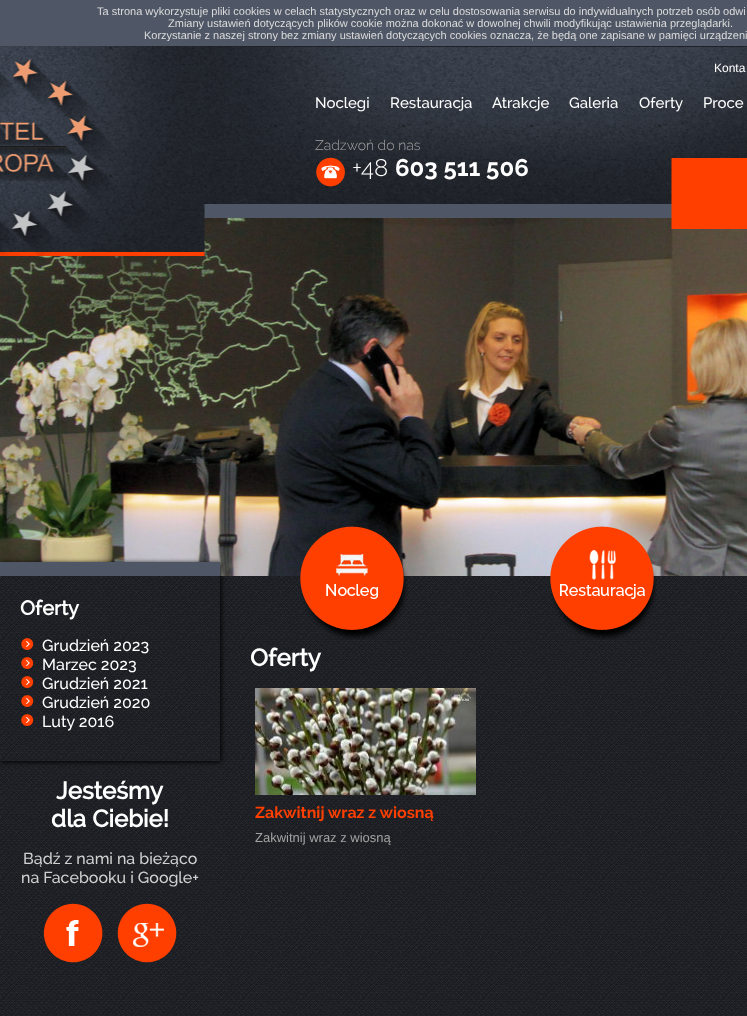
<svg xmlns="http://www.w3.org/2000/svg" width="747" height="1016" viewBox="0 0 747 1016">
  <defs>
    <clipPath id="clip1"><path d="M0 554H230V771H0ZM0 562H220V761H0Z" clip-rule="evenodd"/></clipPath>
    <clipPath id="clip2"><path d="M0 5h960v36H0z"/></clipPath>
  </defs>
  <rect width="100%" height="100%" fill="#4f5766"/>
  <image x="0" y="218" width="747" height="358" href="img/3.png"/>
  <image x="0" y="46" width="747" height="210" href="img/1.png"/>
  <image x="316" y="157" width="29" height="30" href="img/2.png"/>
  <image x="0" y="576" width="747" height="440" href="img/4.png"/>
  <g clip-path="url(#clip1)">
    <path d="M1 563h220v199H1z" fill="#000" filter="blur(2.5px)"/>
  </g>
  <path d="M0 562h220v14H0z" fill="#4f5766"/>
  <image x="21" y="638" width="13" height="12" href="img/5.png"/>
  <image x="21" y="657" width="13" height="12" href="img/6.png"/>
  <image x="21" y="676" width="13" height="12" href="img/7.png"/>
  <image x="21" y="695" width="13" height="12" href="img/8.png"/>
  <image x="21" y="714" width="13" height="12" href="img/9.png"/>
  <image x="43" y="903" width="60" height="60" href="img/10.png"/>
  <image x="117" y="903" width="60" height="60" href="img/11.png"/>
  <image x="300" y="526" width="108" height="114" href="img/12.png"/>
  <image x="550" y="526" width="107" height="114" href="img/13.png"/>
  <image x="255" y="688" width="221" height="107" href="img/14.png"/>
  <g font-family="Liberation Sans" font-size="11" fill="#dddcdc">
    <text x="97" y="15">Ta strona wykorzystuje pliki cookies w celach statystycznych oraz w celu dostosowania serwisu do indywidualnych potrzeb osób odwi</text>
    <text x="168" y="27">Zmiany ustawień dotyczących plików cookie można dokonać w dowolnej chwili modyfikując ustawienia przeglądarki.</text>
  </g>
  <g clip-path="url(#clip2)">
    <text x="144" y="39" font-family="Liberation Sans" font-size="11" fill="#dddcdc">Korzystanie z naszej strony bez zmiany ustawień dotyczących cookies oznacza, że będą one zapisane w pamięci urządzeni</text>
  </g>
  <text x="714" y="72" font-family="Liberation Sans" font-size="12" fill="#fff">Konta</text>
  <g font-family="Raleway" font-size="15" font-weight="500" fill="#fff">
    <text x="315" y="108">Noclegi</text>
    <text x="390" y="108">Restauracja</text>
    <text x="492" y="108">Atrakcje</text>
    <text x="569" y="108">Galeria</text>
    <text x="639" y="108">Oferty</text>
    <text x="703" y="108">Proce</text>
  </g>
  <text x="315" y="150" font-family="Raleway" font-size="14" font-weight="300" fill="#a3a3a3">Zadzwoń do nas</text>
  <text x="352" y="176" font-family="Raleway" font-size="24" font-weight="300" fill="#fff">+48</text>
  <text x="395" y="176" font-family="'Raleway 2'" font-size="24" font-weight="bold" fill="#fff">603 511 506</text>
  <text x="20" y="615" font-family="Raleway" font-size="20" font-weight="bold" fill="#fff">Oferty</text>
  <g font-family="Raleway" font-size="16" font-weight="500" fill="#fff">
    <text x="42" y="651">Grudzień 2023</text>
    <text x="42" y="670">Marzec 2023</text>
    <text x="42" y="689">Grudzień 2021</text>
    <text x="42" y="708">Grudzień 2020</text>
    <text x="42" y="727">Luty 2016</text>
  </g>
  <g font-family="Raleway" font-size="24" font-weight="bold" fill="#fff">
    <text x="56" y="799">Jesteśmy</text>
    <text x="51" y="827">dla Ciebie!</text>
  </g>
  <g font-family="Raleway" font-size="16" font-weight="500" fill="#d1d1d1">
    <text x="23" y="864">Bądź z nami na bieżąco</text>
    <text x="21" y="883">na Facebooku i Google+</text>
  </g>
  <text x="250" y="666" font-family="Raleway" font-size="24" font-weight="bold" fill="#fff">Oferty</text>
  <text x="255" y="818" font-family="'Raleway 2'" font-size="16" font-weight="bold" fill="#ff3f00">Zakwitnij wraz z wiosną</text>
  <text x="255" y="842" font-family="Liberation Sans" font-size="13" fill="#a3a3a3">Zakwitnij wraz z wiosną</text>
</svg>
